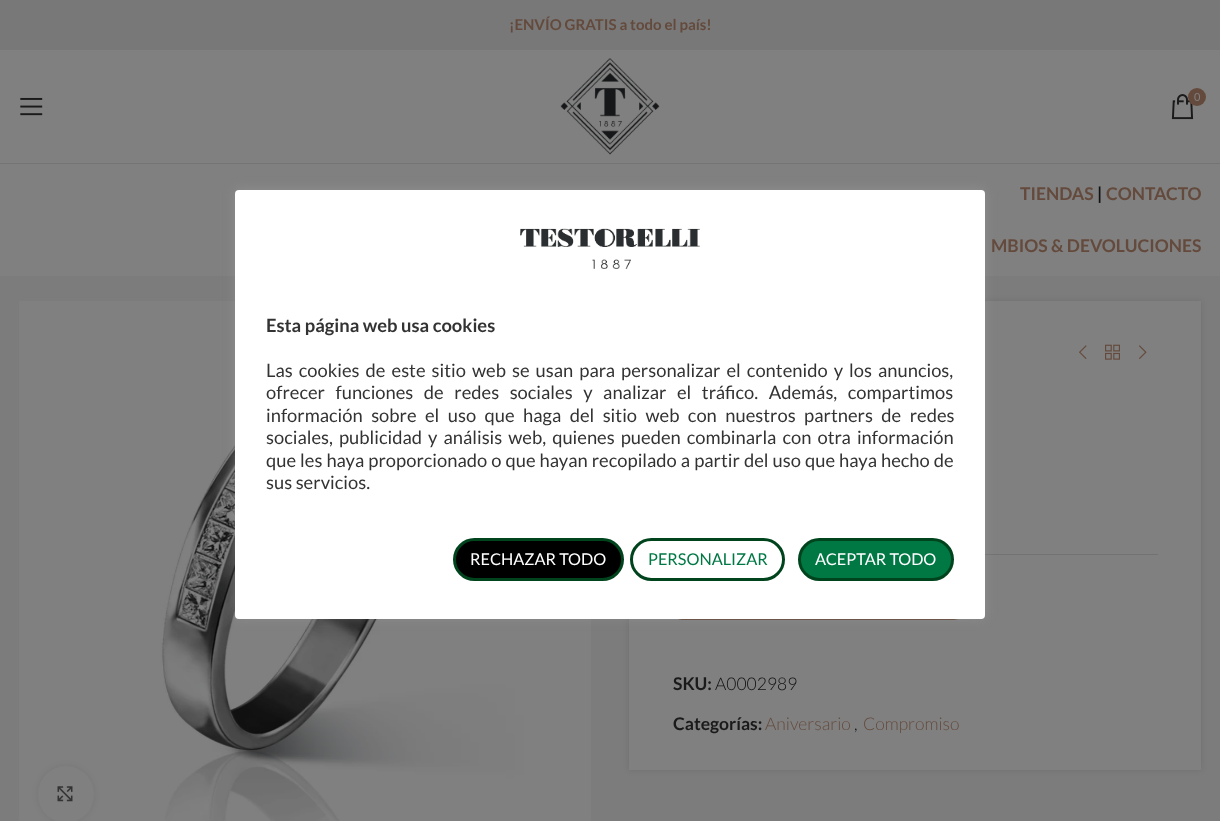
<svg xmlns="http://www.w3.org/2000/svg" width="1220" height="821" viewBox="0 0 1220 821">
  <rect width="100%" height="100%" fill="#808080"/>
  <path d="M0 0h1220v50H0z" fill="#787878"/>
  <path d="M0 163h1220v1H0z" fill="#747474"/>
  <image x="20" y="97" width="23" height="19" href="img/1.png"/>
  <image x="560" y="58" width="100" height="97" href="img/2.png"/>
  <image x="1171" y="94" width="23" height="26" href="img/3.png"/>
  <circle cx="1197" cy="97" r="9" fill="#644a3c"/>
  <path d="M0 276h1220v545H0z" fill="#7c7c7c"/>
  <image x="19" y="301" width="572" height="520" href="img/4.png"/>
  <rect x="38" y="766" width="56" height="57" rx="28" fill="#00000014" filter="blur(3px)"/>
  <rect x="38" y="766" width="56" height="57" rx="28" fill="#808080"/>
  <image x="57" y="786" width="16" height="16" href="img/5.png"/>
  <path d="M629 301h572v469H629z" fill="#0000001a" filter="blur(3px)"/>
  <path d="M629 301h572v469H629z" fill="#808080"/>
  <image x="1079" y="345" width="8" height="14" href="img/6.png"/>
  <image x="1105" y="344" width="15" height="16" href="img/7.png"/>
  <image x="1139" y="345" width="8" height="14" href="img/8.png"/>
  <path d="M985 554h173v1H985z" fill="#727272"/>
  <rect x="673" y="580" width="290" height="40" rx="9" fill="#644a3c"/>
  <rect x="235" y="189" width="750" height="429" rx="4" fill="#acabab4d" filter="blur(6px)"/>
  <rect x="235" y="190" width="750" height="429" rx="4" fill="#fff"/>
  <image x="520" y="228" width="180" height="41" href="img/9.png"/>
  <rect x="454.5" y="539.5" width="168" height="40" rx="20" fill="#000" stroke="#00441d" stroke-width="3"/>
  <rect x="631.5" y="539.5" width="152" height="40" rx="20" fill="none" stroke="#00441d" stroke-width="3"/>
  <rect x="799.5" y="539.5" width="153" height="40" rx="20" fill="#007844" stroke="#00441d" stroke-width="3"/>
  <text x="509" y="30" font-family="Lato" font-size="15" font-weight="bold" fill="#644a3c">¡ENVÍO GRATIS a todo el país!</text>
  <text x="1194" y="101" font-family="Lato" font-size="11" fill="#808080">0</text>
  <text x="1020" y="200" font-family="Lato" font-size="17.5" font-weight="bold" fill="#644a3c">TIENDAS</text>
  <text x="1097" y="200" font-family="Lato" font-size="17.5" font-weight="bold" fill="#111">|</text>
  <g font-family="Lato" font-size="17.5" font-weight="bold" fill="#644a3c">
    <text x="1106" y="200">CONTACTO</text>
    <text x="991" y="252">MBIOS &amp; DEVOLUCIONES</text>
  </g>
  <text x="673" y="690" font-family="Lato" font-size="17.5" font-weight="bold" fill="#1a1a1a">SKU:</text>
  <text x="715" y="690" font-family="Lato" font-size="17.5" font-weight="300" fill="#111">A0002989</text>
  <text x="673" y="730" font-family="Lato" font-size="17.5" font-weight="bold" fill="#1a1a1a">Categorías:</text>
  <text x="765" y="730" font-family="Lato" font-size="17.5" font-weight="300" fill="#644a3c">Aniversario</text>
  <text x="854" y="730" font-family="Lato" font-size="17.5" font-weight="300" fill="#111">,</text>
  <text x="863" y="730" font-family="Lato" font-size="17.5" font-weight="300" fill="#644a3c">Compromiso</text>
  <text x="266" y="332" font-family="Lato" font-size="18.35" font-weight="bold" fill="#333">Esta página web usa cookies</text>
  <g font-family="Lato" font-size="18.35" fill="#333">
    <text x="266" y="377" word-spacing="2.5">Las cookies de este sitio web se usan para personalizar el contenido y los anuncios,</text>
    <text x="266" y="399" word-spacing="7">ofrecer funciones de redes sociales y analizar el tráfico. Además, compartimos</text>
    <text x="266" y="422" word-spacing="4.9">información sobre el uso que haga del sitio web con nuestros partners de redes</text>
    <text x="266" y="444" word-spacing="2.5">sociales, publicidad y análisis web, quienes pueden combinarla con otra información</text>
    <text x="266" y="467" word-spacing="0.5">que les haya proporcionado o que hayan recopilado a partir del uso que haya hecho de</text>
    <text x="266" y="489">sus servicios.</text>
  </g>
  <text x="470" y="565" font-family="Lato" font-size="16.25" fill="#fff">RECHAZAR TODO</text>
  <text x="648" y="565" font-family="Lato" font-size="16.25" fill="#007844">PERSONALIZAR</text>
  <text x="815" y="565" font-family="Lato" font-size="16.25" fill="#fff">ACEPTAR TODO</text>
</svg>
